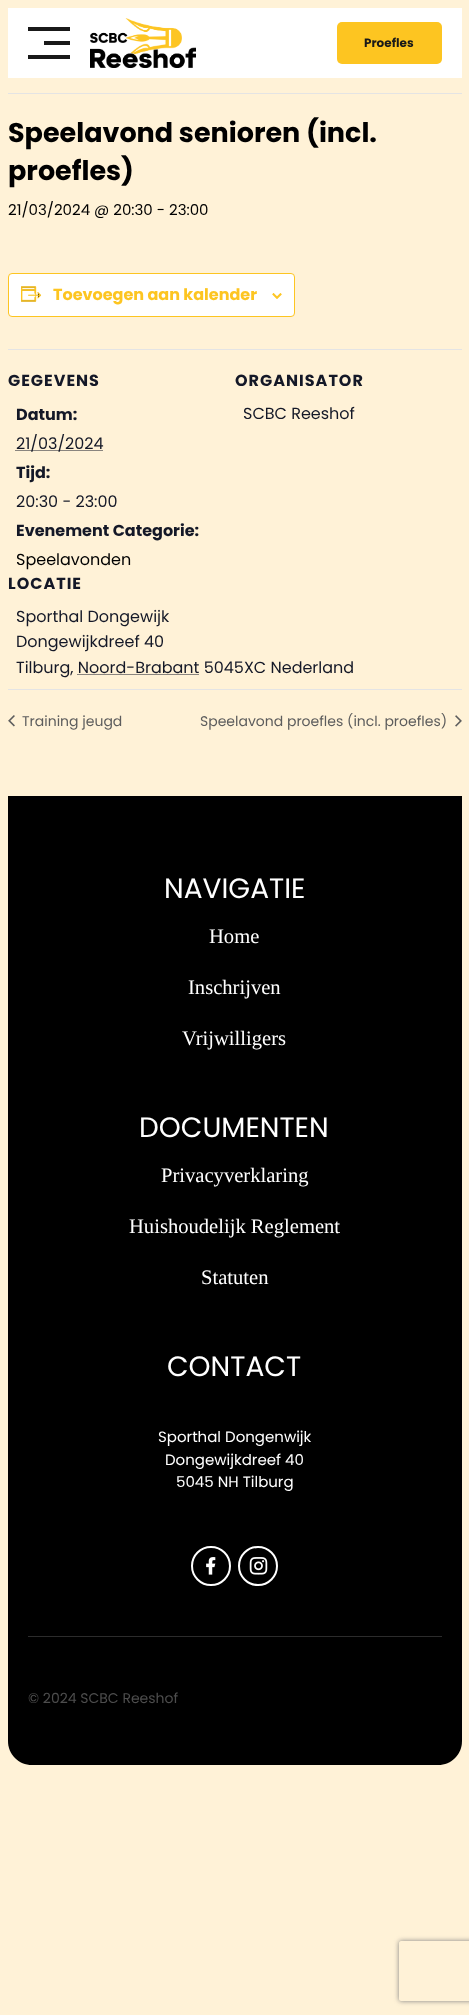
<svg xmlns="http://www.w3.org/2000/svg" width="469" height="2015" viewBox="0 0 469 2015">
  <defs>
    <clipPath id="clip1"><path d="M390 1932H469V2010H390ZM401 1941H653C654 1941 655 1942 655 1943V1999C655 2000 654 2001 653 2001H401C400 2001 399 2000 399 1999V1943C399 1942 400 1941 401 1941Z" clip-rule="evenodd"/></clipPath>
  </defs>
  <rect width="100%" height="100%" fill="#fff2d7"/>
  <path d="M8 8h454v70H8z" fill="#fff"/>
  <path d="M28 27h42v4H28z" fill="#191919"/>
  <path d="M44 41h26v4H44z" fill="#191919"/>
  <path d="M28 55h42v4H28z" fill="#191919"/>
  <image x="90" y="18" width="106" height="50" href="img/1.png"/>
  <rect x="337" y="22" width="105" height="42" rx="5" fill="#fdc521"/>
  <path d="M8 93h454v1H8z" fill="#e4e4e4"/>
  <rect x="8.5" y="273.5" width="286" height="43" rx="3.5" fill="#fff" stroke="#fdc521"/>
  <image x="21" y="286" width="21" height="16" href="img/2.png"/>
  <image x="272" y="293" width="10" height="6" href="img/3.png"/>
  <path d="M8 349h454v1H8z" fill="#e4e4e4"/>
  <path d="M15.5 450.5H103" fill="none" stroke="#141827" stroke-dasharray="1 1"/>
  <path d="M77.5 674.5H199" fill="none" stroke="#141827" stroke-dasharray="1 1"/>
  <path d="M8 689h454v1H8z" fill="#e4e4e4"/>
  <image x="8" y="715" width="7" height="12" href="img/4.png"/>
  <image x="455" y="715" width="7" height="12" href="img/5.png"/>
  <path d="M8 796H462V1741C462 1754.5 451.5 1765 438 1765H32C18.5 1765 8 1754.5 8 1741Z" fill="#000"/>
  <circle cx="211" cy="1566" r="19" fill="none" stroke="#fff" stroke-width="2"/>
  <image x="206" y="1557" width="10" height="18" href="img/6.png"/>
  <circle cx="258" cy="1566" r="19" fill="none" stroke="#fff" stroke-width="2"/>
  <image x="249" y="1557" width="19" height="18" href="img/7.png"/>
  <path d="M28 1636h414v1H28z" fill="#2c2c2c"/>
  <g clip-path="url(#clip1)">
    <rect x="399" y="1941" width="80" height="60" rx="2" fill="#808080" filter="blur(2.5px)"/>
  </g>
  <text x="364" y="47" font-family="Poppins" font-size="12" font-weight="bold" fill="#191919">Proefles</text>
  <g font-family="Poppins" font-size="27" font-weight="bold" fill="#000">
    <text x="8" y="142">Speelavond senioren (incl.</text>
    <text x="8" y="180">proefles)</text>
  </g>
  <text x="8" y="215" font-family="Poppins" font-size="15" fill="#000">21/03/2024 @ 20:30 - 23:00</text>
  <text x="53" y="300" font-family="Poppins" font-size="16" font-weight="bold" fill="#fdc521">Toevoegen aan kalender</text>
  <text x="8" y="386" font-family="Poppins" font-size="16" font-weight="bold" letter-spacing="1" fill="#141827">GEGEVENS</text>
  <text x="16" y="420" font-family="Poppins" font-size="16" font-weight="bold" fill="#141827">Datum:</text>
  <text x="16" y="449" font-family="Poppins" font-size="16" fill="#141827">21/03/2024</text>
  <text x="16" y="478" font-family="Poppins" font-size="16" font-weight="bold" fill="#141827">Tijd:</text>
  <text x="16" y="507" font-family="Poppins" font-size="16" fill="#141827">20:30 - 23:00</text>
  <text x="16" y="536" font-family="Poppins" font-size="16" font-weight="bold" fill="#141827">Evenement Categorie:</text>
  <text x="16" y="565" font-family="Poppins" font-size="16" fill="#000">Speelavonden</text>
  <text x="235" y="386" font-family="Poppins" font-size="16" font-weight="bold" letter-spacing="1" fill="#141827">ORGANISATOR</text>
  <text x="243" y="419" font-family="Poppins" font-size="16" fill="#141827">SCBC Reeshof</text>
  <text x="8" y="589" font-family="Poppins" font-size="16" font-weight="bold" letter-spacing="1" fill="#141827">LOCATIE</text>
  <g font-family="Poppins" font-size="16" fill="#141827">
    <text x="16" y="622">Sporthal Dongewijk</text>
    <text x="16" y="647">Dongewijkdreef 40</text>
    <text x="16" y="673">Tilburg, Noord-Brabant 5045XC Nederland</text>
  </g>
  <g font-family="Poppins" font-size="14" fill="#5d5d5d">
    <text x="22" y="726">Training jeugd</text>
    <text x="200" y="726">Speelavond proefles (incl. proefles)</text>
  </g>
  <text x="164" y="898" font-family="Poppins" font-size="28" fill="#fff">NAVIGATIE</text>
  <g font-family="Liberation Serif" font-size="20.6" fill="#fff">
    <text x="209" y="943">Home</text>
    <text x="188" y="994">Inschrijven</text>
    <text x="182" y="1045">Vrijwilligers</text>
  </g>
  <text x="139" y="1137" font-family="Poppins" font-size="28" fill="#fff">DOCUMENTEN</text>
  <g font-family="Liberation Serif" font-size="20.6" fill="#fff">
    <text x="161" y="1182">Privacyverklaring</text>
    <text x="129" y="1233">Huishoudelijk Reglement</text>
    <text x="201" y="1284">Statuten</text>
  </g>
  <text x="167" y="1376" font-family="Poppins" font-size="28" fill="#fff">CONTACT</text>
  <g font-family="Poppins" font-size="15" fill="#fff">
    <text x="158" y="1442">Sporthal Dongenwijk</text>
    <text x="165" y="1465">Dongewijkdreef 40</text>
    <text x="176" y="1487">5045 NH Tilburg</text>
  </g>
  <text x="28" y="1703" font-family="Poppins" font-size="14" fill="#4d4d4d">© 2024 SCBC Reeshof</text>
</svg>
